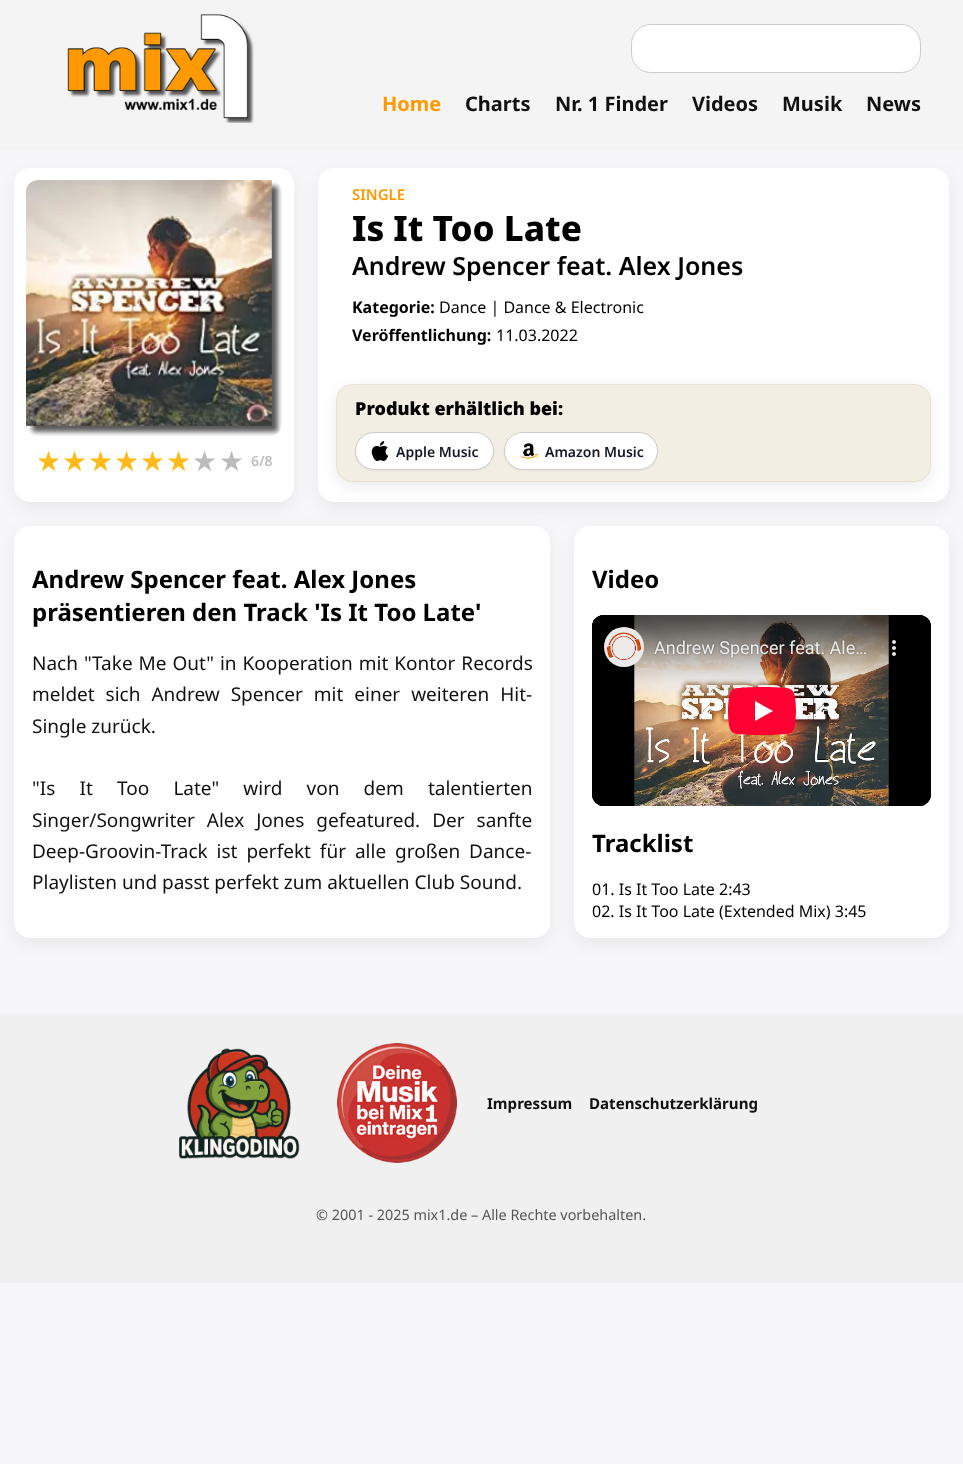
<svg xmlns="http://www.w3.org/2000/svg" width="963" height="1464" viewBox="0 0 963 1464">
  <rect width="100%" height="100%" fill="#f7f7f9"/>
  <rect x="14" y="174" width="280" height="334" rx="16" fill="#0000000f" filter="blur(9px)"/>
  <rect x="14" y="168" width="280" height="334" rx="16" fill="#fff"/>
  <rect x="318" y="174" width="631" height="334" rx="16" fill="#0000000f" filter="blur(9px)"/>
  <path d="M0 0h963v150H0z" fill="#f4f4f4"/>
  <image x="67" y="14" width="187" height="109" href="img/1.png"/>
  <rect x="631.5" y="24.5" width="289" height="48" rx="19.5" fill="#fff" stroke="#ccc"/>
  <image x="26" y="180" width="256" height="256" href="img/2.png"/>
  <rect x="318" y="168" width="631" height="334" rx="16" fill="#fff"/>
  <rect x="336" y="388" width="595" height="98" rx="16" fill="#00000014" filter="blur(7px)"/>
  <rect x="336.5" y="384.5" width="594" height="97" rx="15.5" fill="#f3eee4" stroke="#e8e2d6"/>
  <rect x="355" y="433" width="139" height="38" rx="19" fill="#0000000d" filter="blur(1px)"/>
  <rect x="355.5" y="432.5" width="138" height="37" rx="18.5" fill="#fff" stroke="#ccc"/>
  <image x="371" y="441" width="18" height="20" href="img/3.png"/>
  <rect x="504" y="433" width="154" height="38" rx="19" fill="#0000000d" filter="blur(1px)"/>
  <rect x="504.5" y="432.5" width="153" height="37" rx="18.5" fill="#fff" stroke="#ccc"/>
  <image x="520" y="443" width="18" height="16" href="img/4.png"/>
  <rect x="14" y="532" width="536" height="412" rx="16" fill="#0000000f" filter="blur(9px)"/>
  <rect x="14" y="526" width="536" height="412" rx="16" fill="#fff"/>
  <rect x="574" y="532" width="375" height="412" rx="16" fill="#0000000f" filter="blur(9px)"/>
  <rect x="574" y="526" width="375" height="412" rx="16" fill="#fff"/>
  <image x="592" y="615" width="339" height="191" href="img/5.png"/>
  <path d="M0 1014h963v269H0z" fill="#f0f0f0"/>
  <image x="179" y="1048" width="121" height="111" href="img/6.png"/>
  <image x="337" y="1043" width="120" height="120" href="img/7.png"/>
  <text x="382" y="111" font-family="Noto Sans" font-size="20" font-weight="bold" fill="#fe9900">Home</text>
  <g font-family="Noto Sans" font-size="20" font-weight="bold" fill="#111">
    <text x="465" y="111">Charts</text>
    <text x="555" y="111">Nr. 1 Finder</text>
    <text x="692" y="111">Videos</text>
    <text x="782" y="111">Musik</text>
    <text x="866" y="111">News</text>
  </g>
  <g font-family="DejaVu Sans" font-size="28" fill="#fdba18">
    <text x="36" y="471">★</text>
    <text x="62" y="471">★</text>
    <text x="88" y="471">★</text>
    <text x="114" y="471">★</text>
    <text x="140" y="471">★</text>
    <text x="166" y="471">★</text>
  </g>
  <g font-family="DejaVu Sans" font-size="28" fill="#bbb">
    <text x="192" y="471">★</text>
    <text x="219" y="471">★</text>
  </g>
  <text x="251" y="466" font-family="Noto Sans" font-size="14" font-weight="600" fill="#bbb">6/8</text>
  <text x="352" y="200" font-family="Noto Sans" font-size="15" font-weight="600" fill="#fe9900">SINGLE</text>
  <text x="352" y="241" font-family="Noto Sans" font-size="35" font-weight="800" fill="#000">Is It Too Late</text>
  <text x="352" y="275" font-family="Noto Sans" font-size="25" font-weight="600" fill="#000">Andrew Spencer feat. Alex Jones</text>
  <text x="352" y="313" font-family="Noto Sans" font-size="16" font-weight="bold" fill="#000">Kategorie:</text>
  <text x="439" y="313" font-family="Noto Sans" font-size="16" fill="#000">Dance | Dance &amp; Electronic</text>
  <text x="352" y="341" font-family="Noto Sans" font-size="16" font-weight="bold" fill="#000">Veröffentlichung:</text>
  <text x="496" y="341" font-family="Noto Sans" font-size="16" fill="#000">11.03.2022</text>
  <text x="355" y="415" font-family="Noto Sans" font-size="18" font-weight="900" fill="#000">Produkt erhältlich bei:</text>
  <g font-family="Noto Sans" font-size="14" font-weight="600" fill="#111827">
    <text x="396" y="457">Apple Music</text>
    <text x="545" y="457">Amazon Music</text>
  </g>
  <g font-family="Noto Sans" font-size="24" font-weight="bold" fill="#000">
    <text x="32" y="588">Andrew Spencer feat. Alex Jones</text>
    <text x="32" y="621">präsentieren den Track 'Is It Too Late'</text>
  </g>
  <g font-family="Noto Sans" font-size="19" fill="#111">
    <text x="32" y="670" word-spacing="1">Nach "Take Me Out" in Kooperation mit Kontor Records</text>
    <text x="32" y="701" word-spacing="6">meldet sich Andrew Spencer mit einer weiteren Hit-</text>
    <text x="32" y="733">Single zurück.</text>
    <text x="32" y="795" word-spacing="19.25">"Is It Too Late" wird von dem talentierten</text>
    <text x="32" y="827" word-spacing="7">Singer/Songwriter Alex Jones gefeatured. Der sanfte</text>
    <text x="32" y="858" word-spacing="4">Deep-Groovin-Track ist perfekt für alle großen Dance-</text>
    <text x="32" y="889">Playlisten und passt perfekt zum aktuellen Club Sound.</text>
  </g>
  <g font-family="Noto Sans" font-size="24" font-weight="bold" fill="#000">
    <text x="592" y="588">Video</text>
    <text x="592" y="852">Tracklist</text>
  </g>
  <g font-family="Noto Sans" font-size="16" fill="#000">
    <text x="592" y="895">01. Is It Too Late 2:43</text>
    <text x="592" y="917">02. Is It Too Late (Extended Mix) 3:45</text>
  </g>
  <g font-family="Noto Sans" font-size="15.1" font-weight="bold" fill="#111">
    <text x="487" y="1109">Impressum</text>
    <text x="589" y="1109">Datenschutzerklärung</text>
  </g>
  <text x="316" y="1220" font-family="Noto Sans" font-size="14.4" fill="#555">© 2001 - 2025 mix1.de – Alle Rechte vorbehalten.</text>
</svg>
